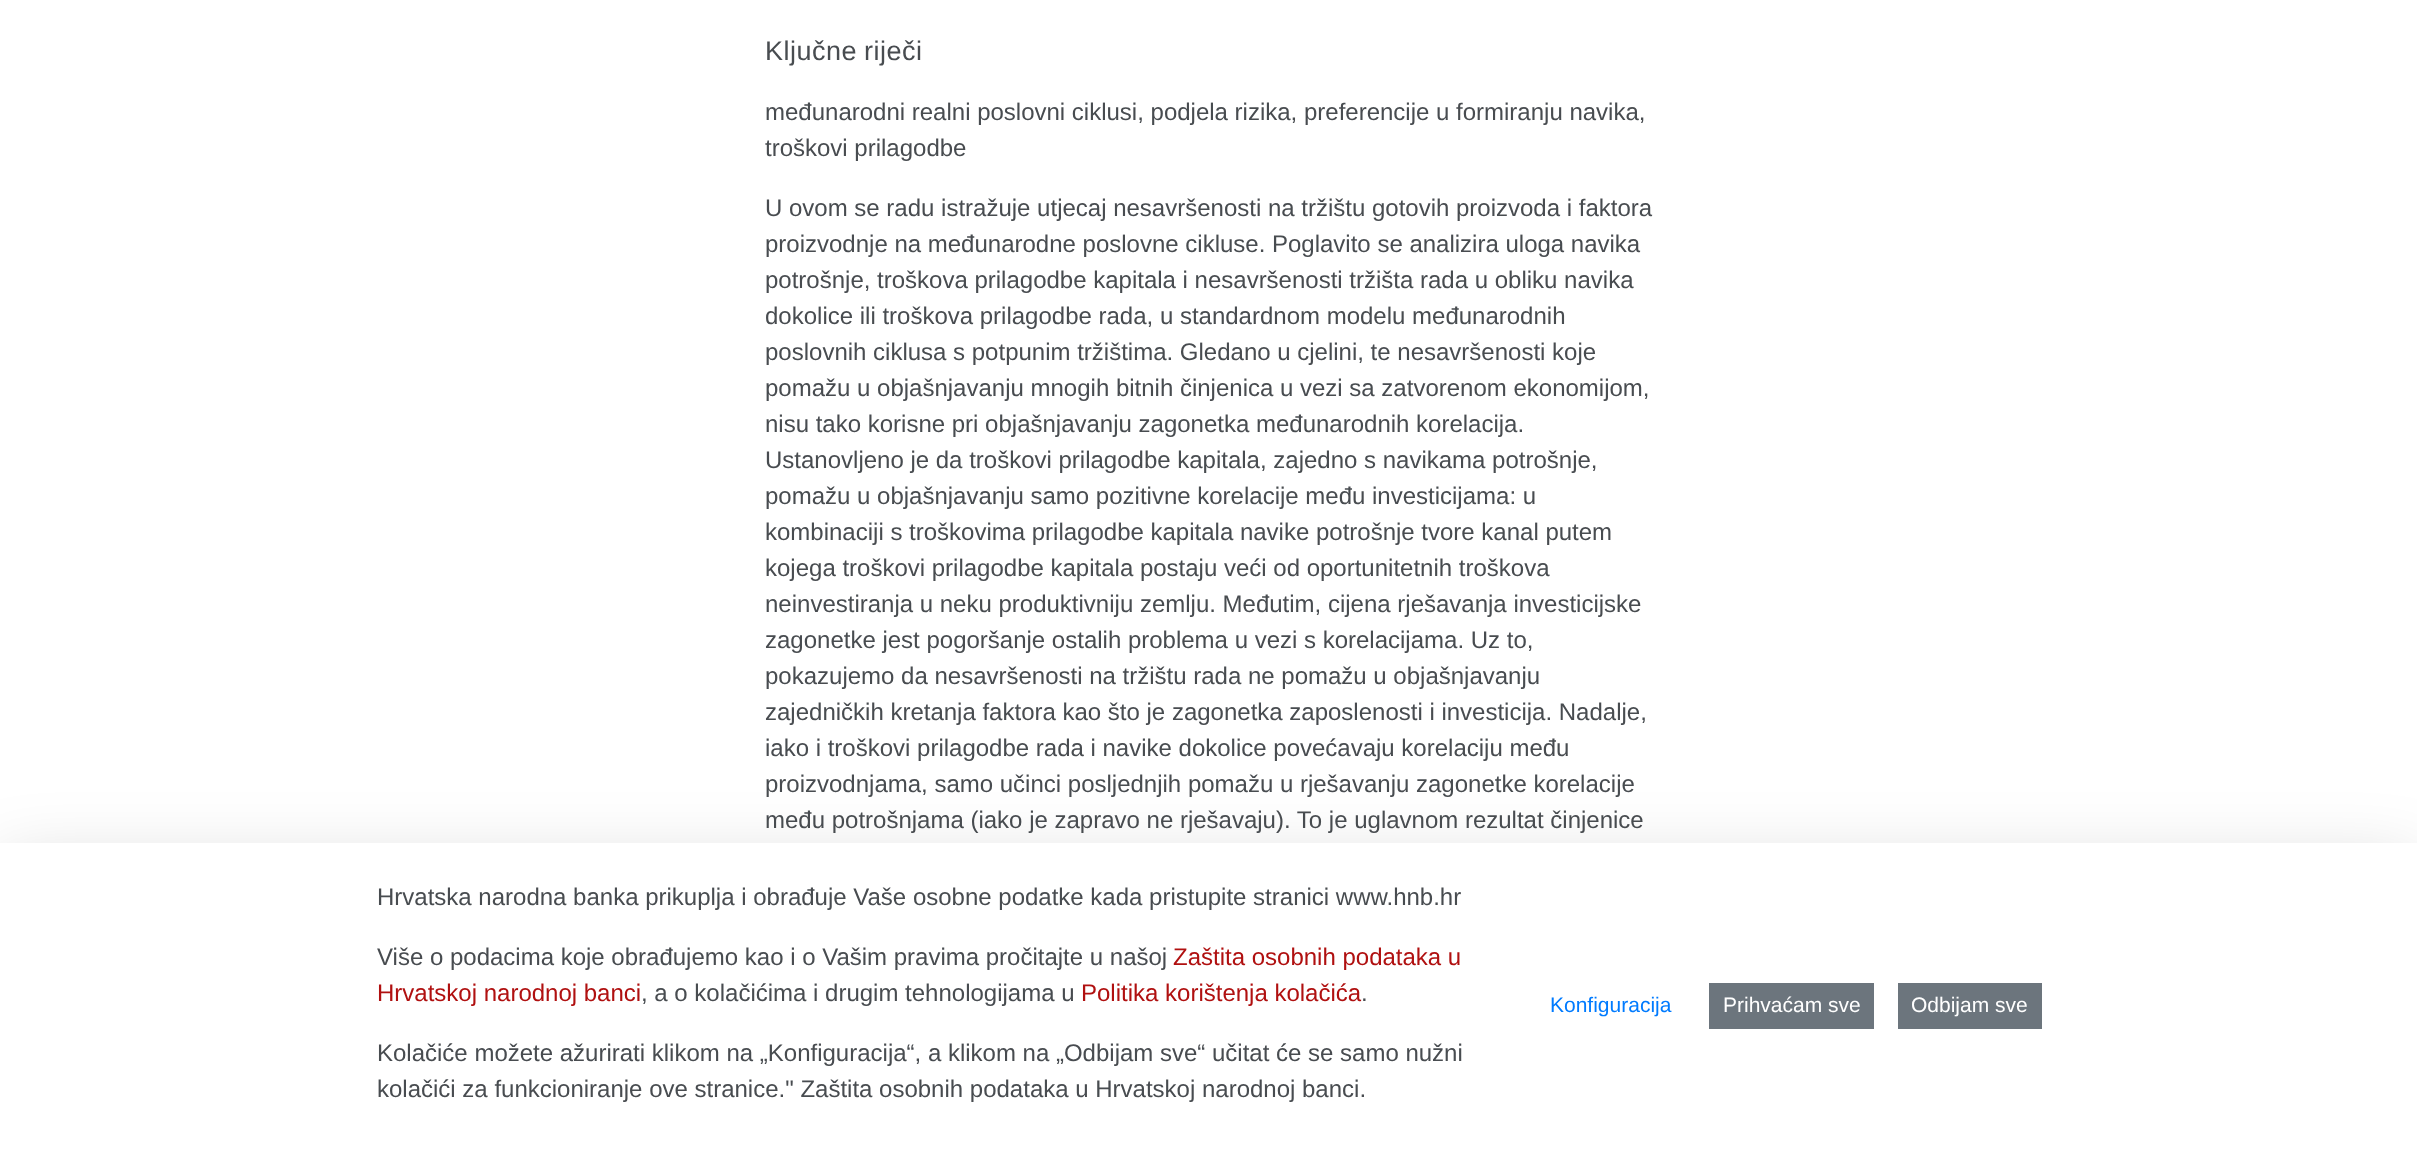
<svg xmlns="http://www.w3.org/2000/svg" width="2417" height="1167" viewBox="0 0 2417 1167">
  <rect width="100%" height="100%" fill="#fff"/>
  <path d="M0 867h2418v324H0z" fill="#0000002e" filter="blur(36px)"/>
  <path d="M0 843h2417v324H0z" fill="#fff"/>
  <path d="M1709 983h165v46H1709z" fill="#6c757d"/>
  <path d="M1898 983h144v46H1898z" fill="#6c757d"/>
  <text x="765" y="60" word-spacing="-1" font-family="Liberation Sans" font-size="27" letter-spacing="0.5" fill="#484c50">Ključne riječi</text>
  <g font-family="Liberation Sans" font-size="24" fill="#484c50">
    <text x="765" y="120">međunarodni realni poslovni ciklusi, podjela rizika, preferencije u formiranju navika,</text>
    <text x="765" y="156">troškovi prilagodbe</text>
    <text x="765" y="216">U ovom se radu istražuje utjecaj nesavršenosti na tržištu gotovih proizvoda i faktora</text>
    <text x="765" y="252">proizvodnje na međunarodne poslovne cikluse. Poglavito se analizira uloga navika</text>
    <text x="765" y="288">potrošnje, troškova prilagodbe kapitala i nesavršenosti tržišta rada u obliku navika</text>
    <text x="765" y="324">dokolice ili troškova prilagodbe rada, u standardnom modelu međunarodnih</text>
    <text x="765" y="360">poslovnih ciklusa s potpunim tržištima. Gledano u cjelini, te nesavršenosti koje</text>
    <text x="765" y="396">pomažu u objašnjavanju mnogih bitnih činjenica u vezi sa zatvorenom ekonomijom,</text>
    <text x="765" y="432">nisu tako korisne pri objašnjavanju zagonetka međunarodnih korelacija.</text>
    <text x="765" y="468">Ustanovljeno je da troškovi prilagodbe kapitala, zajedno s navikama potrošnje,</text>
    <text x="765" y="504">pomažu u objašnjavanju samo pozitivne korelacije među investicijama: u</text>
    <text x="765" y="540">kombinaciji s troškovima prilagodbe kapitala navike potrošnje tvore kanal putem</text>
    <text x="765" y="576">kojega troškovi prilagodbe kapitala postaju veći od oportunitetnih troškova</text>
    <text x="765" y="612">neinvestiranja u neku produktivniju zemlju. Međutim, cijena rješavanja investicijske</text>
    <text x="765" y="648">zagonetke jest pogoršanje ostalih problema u vezi s korelacijama. Uz to,</text>
    <text x="765" y="684">pokazujemo da nesavršenosti na tržištu rada ne pomažu u objašnjavanju</text>
    <text x="765" y="720">zajedničkih kretanja faktora kao što je zagonetka zaposlenosti i investicija. Nadalje,</text>
    <text x="765" y="756">iako i troškovi prilagodbe rada i navike dokolice povećavaju korelaciju među</text>
    <text x="765" y="792">proizvodnjama, samo učinci posljednjih pomažu u rješavanju zagonetke korelacije</text>
    <text x="765" y="828">među potrošnjama (iako je zapravo ne rješavaju). To je uglavnom rezultat činjenice</text>
    <text x="377" y="905">Hrvatska narodna banka prikuplja i obrađuje Vaše osobne podatke kada pristupite stranici www.hnb.hr</text>
    <text x="377" y="965">Više o podacima koje obrađujemo kao i o Vašim pravima pročitajte u našoj</text>
  </g>
  <g font-family="Liberation Sans" font-size="24" fill="#b01010">
    <text x="1173" y="965">Zaštita osobnih podataka u</text>
    <text x="377" y="1001">Hrvatskoj narodnoj banci</text>
  </g>
  <text x="641" y="1001" font-family="Liberation Sans" font-size="24" fill="#484c50">, a o kolačićima i drugim tehnologijama u</text>
  <text x="1081" y="1001" font-family="Liberation Sans" font-size="24" fill="#b01010">Politika korištenja kolačića</text>
  <g font-family="Liberation Sans" font-size="24" fill="#484c50">
    <text x="1361" y="1001">.</text>
    <text x="377" y="1061">Kolačiće možete ažurirati klikom na „Konfiguracija“, a klikom na „Odbijam sve“ učitat će se samo nužni</text>
    <text x="377" y="1097">kolačići za funkcioniranje ove stranice." Zaštita osobnih podataka u Hrvatskoj narodnoj banci.</text>
  </g>
  <text x="1550" y="1012" font-family="Liberation Sans" font-size="21" fill="#007bff">Konfiguracija</text>
  <g font-family="Liberation Sans" font-size="21" fill="#fff">
    <text x="1723" y="1012">Prihvaćam sve</text>
    <text x="1911" y="1012">Odbijam sve</text>
  </g>
</svg>
